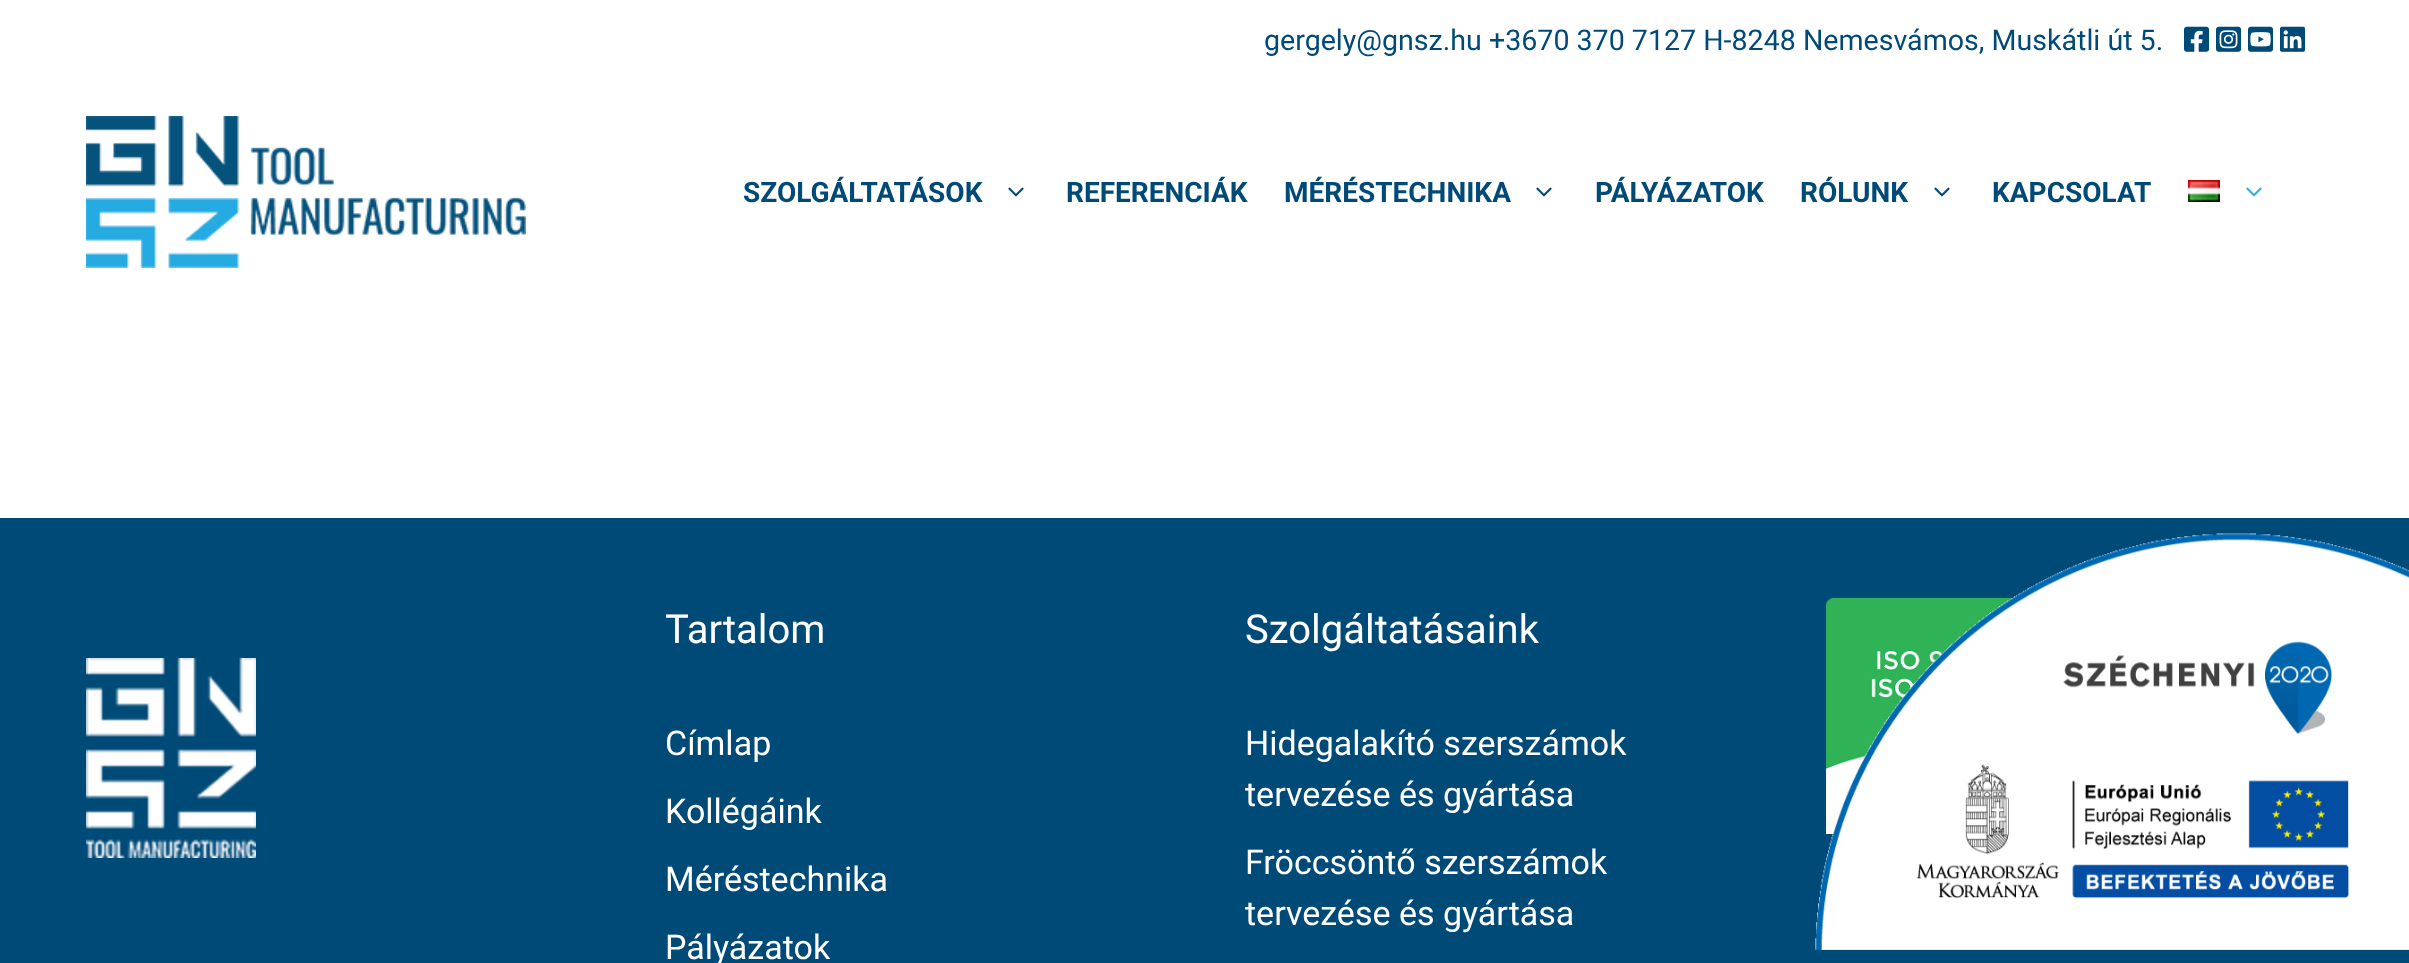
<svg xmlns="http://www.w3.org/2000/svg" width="2409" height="963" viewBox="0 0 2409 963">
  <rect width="100%" height="100%" fill="#fff"/>
  <image x="2184" y="26" width="26" height="26" href="img/1.png"/>
  <image x="2216" y="26" width="26" height="26" href="img/2.png"/>
  <image x="2248" y="26" width="26" height="26" href="img/3.png"/>
  <image x="2280" y="26" width="26" height="26" href="img/4.png"/>
  <image x="86" y="116" width="440" height="152" href="img/5.png"/>
  <image x="1008" y="187" width="16" height="10" href="img/6.png"/>
  <image x="1536" y="187" width="16" height="10" href="img/6.png"/>
  <image x="1934" y="187" width="16" height="10" href="img/6.png"/>
  <image x="2188" y="180" width="32" height="22" href="img/7.png"/>
  <image x="2246" y="187" width="16" height="10" href="img/8.png"/>
  <path d="M0 518h2409v445H0z" fill="#004a78"/>
  <image x="86" y="658" width="170" height="200" href="img/9.png"/>
  <image x="1826" y="598" width="188" height="236" href="img/10.png"/>
  <image x="1815" y="533" width="594" height="417" href="img/11.png"/>
  <text x="1264" y="50" font-family="Roboto" font-size="28.6" fill="#004a78">gergely@gnsz.hu +3670 370 7127 H-8248 Nemesvámos, Muskátli út 5.</text>
  <g font-family="Roboto" font-size="28" font-weight="bold" fill="#004a78">
    <text x="743" y="202">SZOLGÁLTATÁSOK</text>
    <text x="1066" y="202">REFERENCIÁK</text>
    <text x="1284" y="202">MÉRÉSTECHNIKA</text>
    <text x="1595" y="202">PÁLYÁZATOK</text>
    <text x="1800" y="202">RÓLUNK</text>
    <text x="1992" y="202">KAPCSOLAT</text>
  </g>
  <text x="665" y="643" font-family="Roboto" font-size="40" fill="#fff">Tartalom</text>
  <g font-family="Roboto" font-size="34" fill="#fff">
    <text x="665" y="755">Címlap</text>
    <text x="665" y="823">Kollégáink</text>
    <text x="665" y="891">Méréstechnika</text>
    <text x="665" y="959">Pályázatok</text>
  </g>
  <text x="1245" y="643" font-family="Roboto" font-size="40" fill="#fff">Szolgáltatásaink</text>
  <g font-family="Roboto" font-size="34" fill="#fff">
    <text x="1245" y="755">Hidegalakító szerszámok</text>
    <text x="1245" y="806">tervezése és gyártása</text>
    <text x="1245" y="874">Fröccsöntő szerszámok</text>
    <text x="1245" y="925">tervezése és gyártása</text>
  </g>
</svg>
